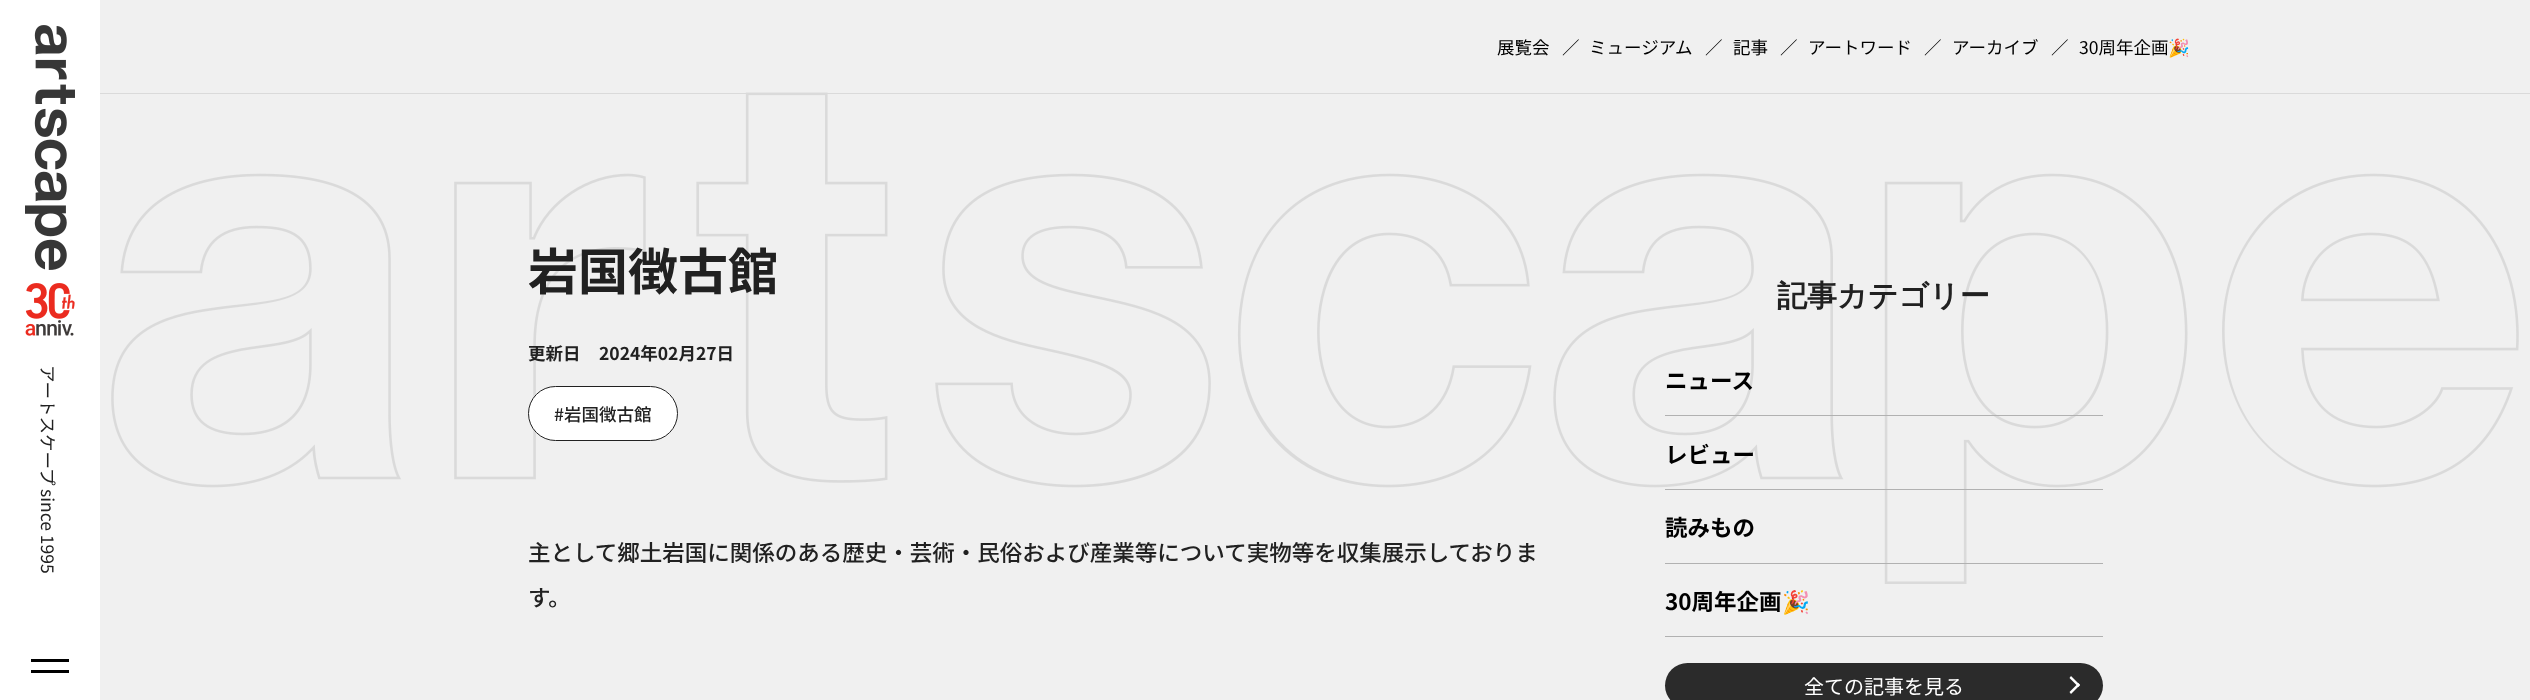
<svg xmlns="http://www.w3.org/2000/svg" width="2530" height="700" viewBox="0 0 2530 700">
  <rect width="100%" height="100%" fill="#fff"/>
  <image x="25" y="25" width="50" height="245" href="img/1.png"/>
  <image x="25" y="283" width="50" height="53" href="img/2.png"/>
  <path d="M31 659h38v3H31z" fill="#000"/>
  <path d="M31 670h38v3H31z" fill="#000"/>
  <path d="M100 0h2430v700H100z" fill="#f0f0f0"/>
  <image x="111" y="92" width="2408" height="492" href="img/3.png"/>
  <path d="M100 93h2430v1H100z" fill="#dadada"/>
  <rect x="528.5" y="386.5" width="149" height="54" rx="27" fill="#fff" stroke="#212121"/>
  <path d="M1665 415h438v1H1665z" fill="#b1b1b1"/>
  <path d="M1665 489h438v1H1665z" fill="#b1b1b1"/>
  <path d="M1665 563h438v1H1665z" fill="#b1b1b1"/>
  <path d="M1665 636h438v1H1665z" fill="#b1b1b1"/>
  <rect x="1665" y="663" width="438" height="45" rx="22.5" fill="#2b2b2b"/>
  <path d="M2080 685L2071 694L2069.5 692L2078.5 683Z" fill="#fff"/>
  <path d="M2080 685L2078.5 687L2069.5 678L2071 676Z" fill="#fff"/>
  <g font-family="Noto Sans JP" font-size="17.5" fill="#212121">
    <text x="41" y="365" transform="rotate(90 41 365)">アートスケープ</text>
    <text x="41" y="489" transform="rotate(90 41 489)">since 1995</text>
  </g>
  <g font-family="Noto Sans JP" font-size="17.5" fill="#000">
    <text x="1497" y="54">展覧会</text>
    <text x="1562" y="54">／</text>
    <text x="1589" y="54">ミュージアム</text>
    <text x="1705" y="54">／</text>
    <text x="1733" y="54">記事</text>
    <text x="1780" y="54">／</text>
    <text x="1808" y="54">アートワード</text>
    <text x="1924" y="54">／</text>
    <text x="1952" y="54">アーカイブ</text>
    <text x="2051" y="54">／</text>
    <text x="2079" y="54">30周年企画</text>
  </g>
  <text x="2168" y="54" font-family="Noto Color Emoji" font-size="17.5" fill="#000">🎉</text>
  <text x="528" y="290" font-family="Noto Sans JP" font-size="50" font-weight="bold" fill="#212121">岩国徴古館</text>
  <g font-family="Noto Sans JP" font-size="17.5" font-weight="bold" fill="#212121">
    <text x="528" y="360">更新日</text>
    <text x="599" y="360">2024年02月27日</text>
  </g>
  <text x="554" y="421" font-family="Noto Sans JP" font-size="17.5" font-weight="500" fill="#212121">#岩国徴古館</text>
  <g font-family="Noto Sans JP" font-size="22.5" font-weight="500" fill="#212121">
    <text x="528" y="561">主として郷土岩国に関係のある歴史・芸術・民俗および産業等について実物等を収集展示しておりま</text>
    <text x="528" y="606">す。</text>
  </g>
  <text x="1777" y="306" font-family="WenQuanYi Zen Hei" font-size="30" font-weight="bold" fill="#212121">記事カテゴリー</text>
  <g font-family="Noto Sans JP" font-size="22.5" font-weight="bold" fill="#000">
    <text x="1665" y="389">ニュース</text>
    <text x="1665" y="463">レビュー</text>
    <text x="1665" y="536">読みもの</text>
    <text x="1665" y="610">30周年企画</text>
  </g>
  <text x="1782" y="610" font-family="Noto Color Emoji" font-size="22.5" font-weight="bold" fill="#000">🎉</text>
  <text x="1804" y="694" font-family="Noto Sans JP" font-size="20" fill="#fff">全ての記事を見る</text>
</svg>
